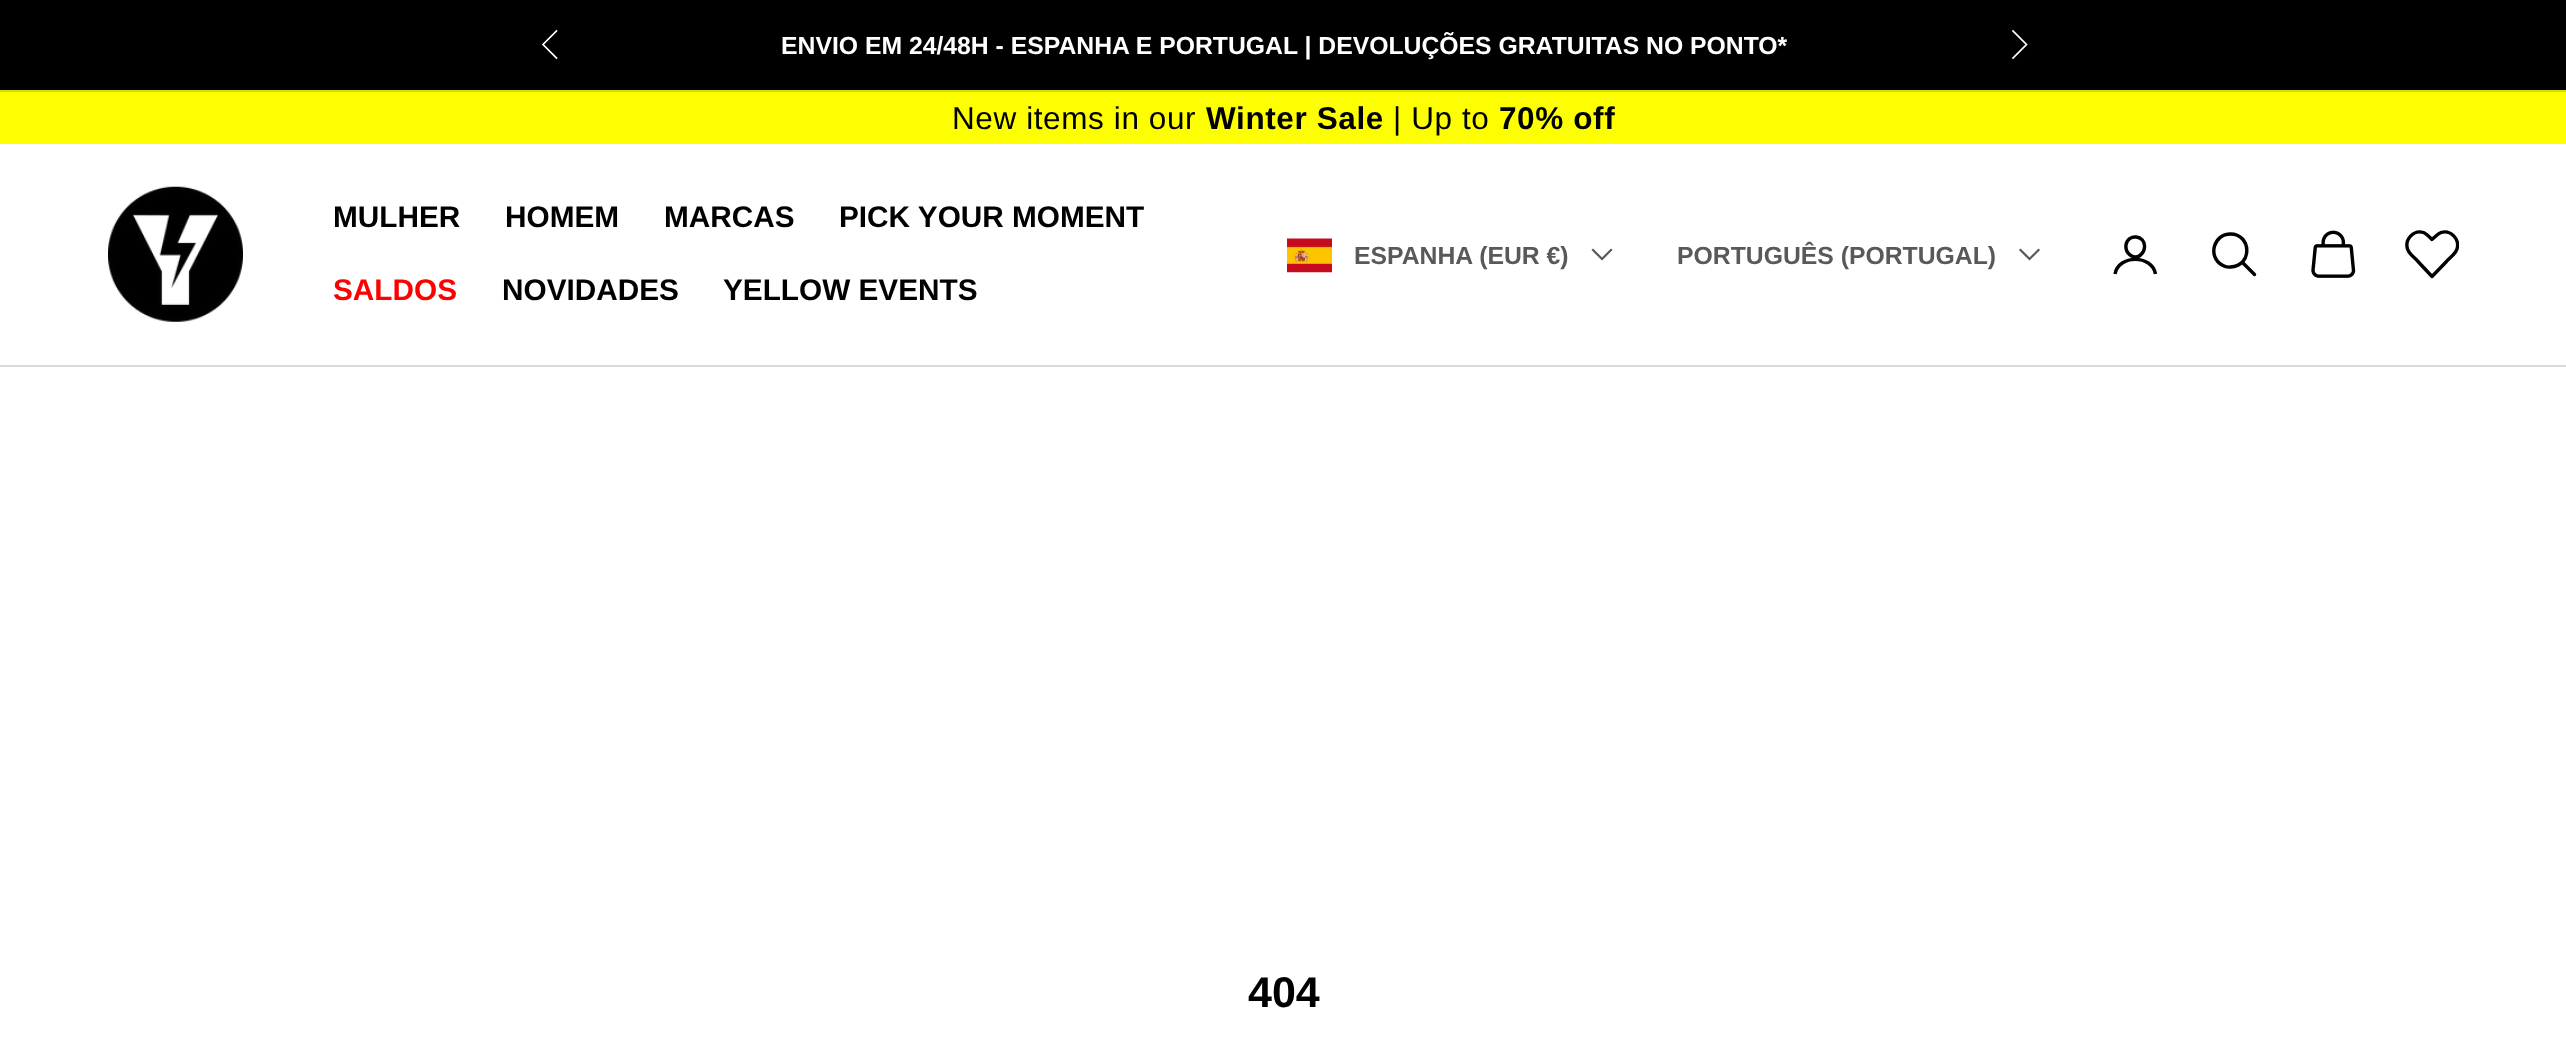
<svg xmlns="http://www.w3.org/2000/svg" width="2566" height="1062" viewBox="0 0 2566 1062">
  <defs>
    <clipPath id="clip1"><path d="M2405 227h54v54H2405z"/></clipPath>
  </defs>
  <rect width="100%" height="100%" fill="#fff"/>
  <path d="M0 0h2566v90H0z" fill="#000"/>
  <path d="M556.5 31L543 44.5L556.5 58" fill="none" stroke="#fff" stroke-width="1.7" stroke-linecap="square"/>
  <path d="M2013 58L2026.5 44.5L2013 31" fill="none" stroke="#fff" stroke-width="1.7" stroke-linecap="square"/>
  <path d="M0 92h2566v52H0z" fill="#fdff00"/>
  <path d="M0 90h2566v2H0z" fill="#d7d900"/>
  <path d="M0 365h2566v2H0z" fill="#d9d9d9"/>
  <image x="108" y="186" width="135" height="136" href="img/1.png"/>
  <image x="1287" y="238" width="45" height="35" href="img/2.png"/>
  <path d="M1593 250L1602 259L1611 250" fill="none" stroke="#595959" stroke-width="2.2" stroke-linecap="square"/>
  <path d="M2020.5 250L2029.5 259L2038.5 250" fill="none" stroke="#595959" stroke-width="2.2" stroke-linecap="square"/>
  <path d="M2144.5 247C2144.5 249.5 2143.5 252 2141.5 254C2134.5 261.5 2125 253.5 2126 245C2127.5 233 2145.5 235 2144.5 247Z" fill="none" stroke="#000" stroke-width="3.4" stroke-linecap="round" stroke-linejoin="round"/>
  <path d="M2115 274C2118.5 254.5 2152 254.5 2155.5 274" fill="none" stroke="#000" stroke-width="3.4"/>
  <path d="M2230.5 234C2213.5 234 2207.5 256.5 2222 265C2224.5 266.5 2227.5 267.5 2230.5 267C2253 266 2251.5 234 2230.5 234Z" fill="none" stroke="#000" stroke-width="3.4"/>
  <path d="M2243 263L2254.5 274.5" fill="none" stroke="#000" stroke-width="3.4" stroke-linecap="round"/>
  <image x="2311" y="230" width="45" height="48" href="img/3.png"/>
  <g clip-path="url(#clip1)">
    <path d="M2432 276.5L2418 261.5C2414.5 257.5 2409 254 2407.5 249C2404.5 239 2414 229.5 2423.5 232.5C2427 234 2429.5 237 2432 239.5C2435 237 2437.5 234 2441 232.5C2450.5 229.5 2460 239 2457 249C2455.5 254 2450 257.5 2446.5 261.5Z" fill="none" stroke="#000" stroke-width="3.4" stroke-linecap="round" stroke-linejoin="round"/>
  </g>
  <text x="781" y="54" font-family="Liberation Sans" font-size="24.75" font-weight="bold" fill="#fff">ENVIO EM 24/48H - ESPANHA E PORTUGAL | DEVOLUÇÕES GRATUITAS NO PONTO*</text>
  <text x="952" y="129" font-family="Liberation Sans" font-size="31.5" letter-spacing="0.6" fill="#000">New items in our</text>
  <text x="1206" y="129" font-family="Liberation Sans" font-size="31.5" font-weight="bold" letter-spacing="0.6" fill="#000">Winter Sale</text>
  <text x="1393" y="129" font-family="Liberation Sans" font-size="31.5" letter-spacing="0.6" fill="#000">| Up to</text>
  <text x="1499" y="129" font-family="Liberation Sans" font-size="31.5" font-weight="bold" letter-spacing="0.6" fill="#000">70% off</text>
  <g font-family="Liberation Sans" font-size="29.75" font-weight="bold" fill="#000">
    <text x="333" y="227">MULHER</text>
    <text x="505" y="227">HOMEM</text>
    <text x="664" y="227">MARCAS</text>
    <text x="839" y="227">PICK YOUR MOMENT</text>
  </g>
  <text x="333" y="300" font-family="Liberation Sans" font-size="29.75" font-weight="bold" fill="#f00">SALDOS</text>
  <g font-family="Liberation Sans" font-size="29.75" font-weight="bold" fill="#000">
    <text x="502" y="300">NOVIDADES</text>
    <text x="723" y="300">YELLOW EVENTS</text>
  </g>
  <g font-family="Liberation Sans" font-size="24.75" font-weight="bold" fill="#595959">
    <text x="1354" y="264">ESPANHA (EUR €)</text>
    <text x="1677" y="264">PORTUGUÊS (PORTUGAL)</text>
  </g>
  <text x="1248" y="1007" font-family="Liberation Sans" font-size="43" font-weight="bold" fill="#000">404</text>
</svg>
